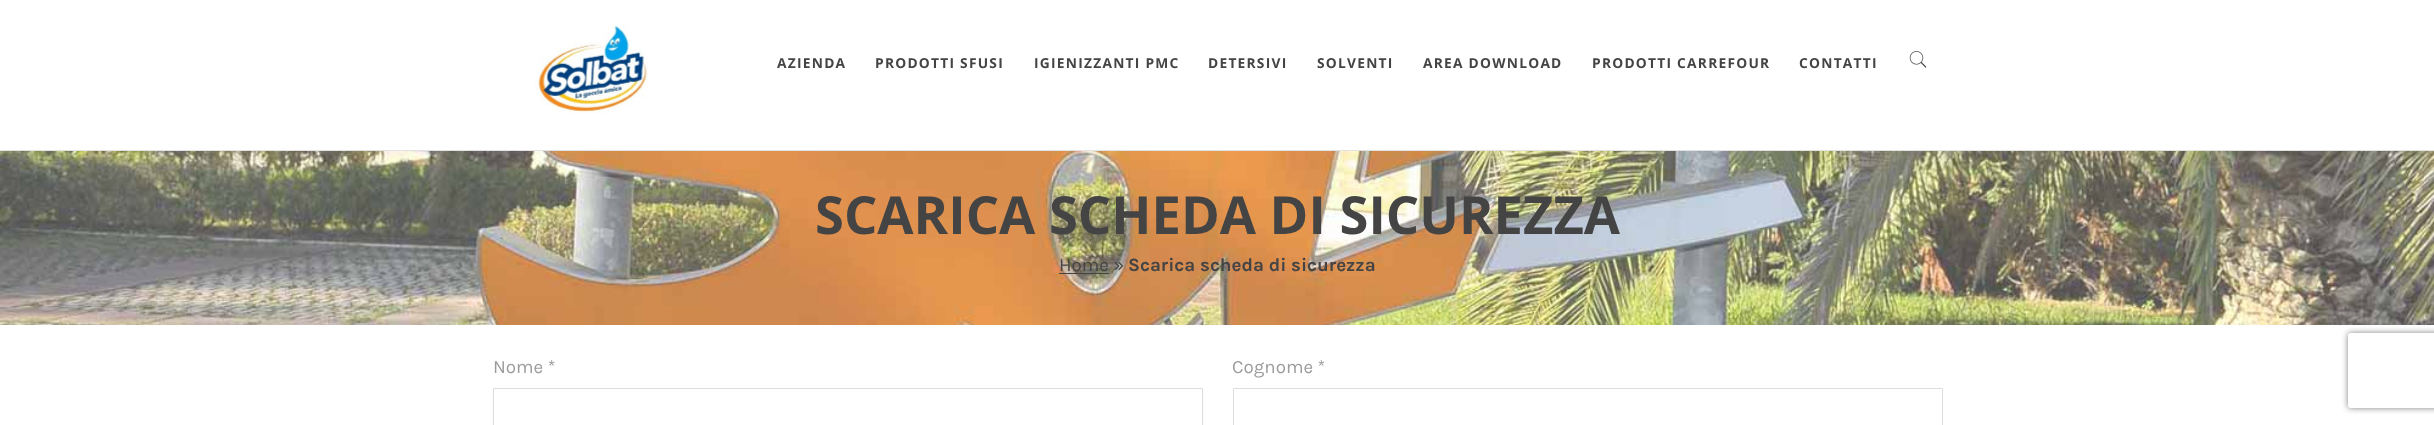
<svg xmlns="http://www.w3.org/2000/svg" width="2434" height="425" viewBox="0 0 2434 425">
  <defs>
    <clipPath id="clip1"><path d="M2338 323H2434V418H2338ZM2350.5 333H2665.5C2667 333 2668 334 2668 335.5V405.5C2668 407 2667 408 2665.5 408H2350.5C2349 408 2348 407 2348 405.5V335.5C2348 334 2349 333 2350.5 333Z" clip-rule="evenodd"/></clipPath>
  </defs>
  <rect width="100%" height="100%" fill="#fff"/>
  <path d="M0 150h2434v1H0z" fill="#e2e2e2"/>
  <image x="534" y="25" width="114" height="89" href="img/1.png"/>
  <image x="1909" y="51" width="18" height="17" href="img/2.png"/>
  <g clip-path="url(#clip1)">
    <rect x="2348" y="333" width="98" height="75" rx="2.5" fill="#808080" filter="blur(3px)"/>
  </g>
  <image x="0" y="151" width="2434" height="174" href="img/3.png"/>
  <path d="M1059 273h50v1H1059z" fill="#444"/>
  <path d="M493.5 388.5h709v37H493.5z" fill="none" stroke="#ddd"/>
  <path d="M1233.5 388.5h709v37H1233.5z" fill="none" stroke="#ddd"/>
  <g font-family="Open Sans" font-size="13.75" font-weight="bold" letter-spacing="1.25" fill="#444">
    <text x="777" y="68">AZIENDA</text>
    <text x="875" y="68">PRODOTTI SFUSI</text>
    <text x="1034" y="68">IGIENIZZANTI PMC</text>
    <text x="1208" y="68">DETERSIVI</text>
    <text x="1317" y="68">SOLVENTI</text>
    <text x="1423" y="68">AREA DOWNLOAD</text>
    <text x="1592" y="68">PRODOTTI CARREFOUR</text>
    <text x="1799" y="68">CONTATTI</text>
  </g>
  <text x="815" y="234" font-family="Open Sans" font-size="52.5" font-weight="bold" fill="#444">SCARICA SCHEDA DI SICUREZZA</text>
  <text x="1059" y="271" font-family="Karla" font-size="18.75" fill="#444">Home »</text>
  <text x="1128" y="271" font-family="Karla" font-size="18.75" font-weight="bold" fill="#444">Scarica scheda di sicurezza</text>
  <g font-family="Karla" font-size="18.75" fill="#9c9c9c">
    <text x="493" y="373">Nome *</text>
    <text x="1232" y="373">Cognome *</text>
  </g>
</svg>
